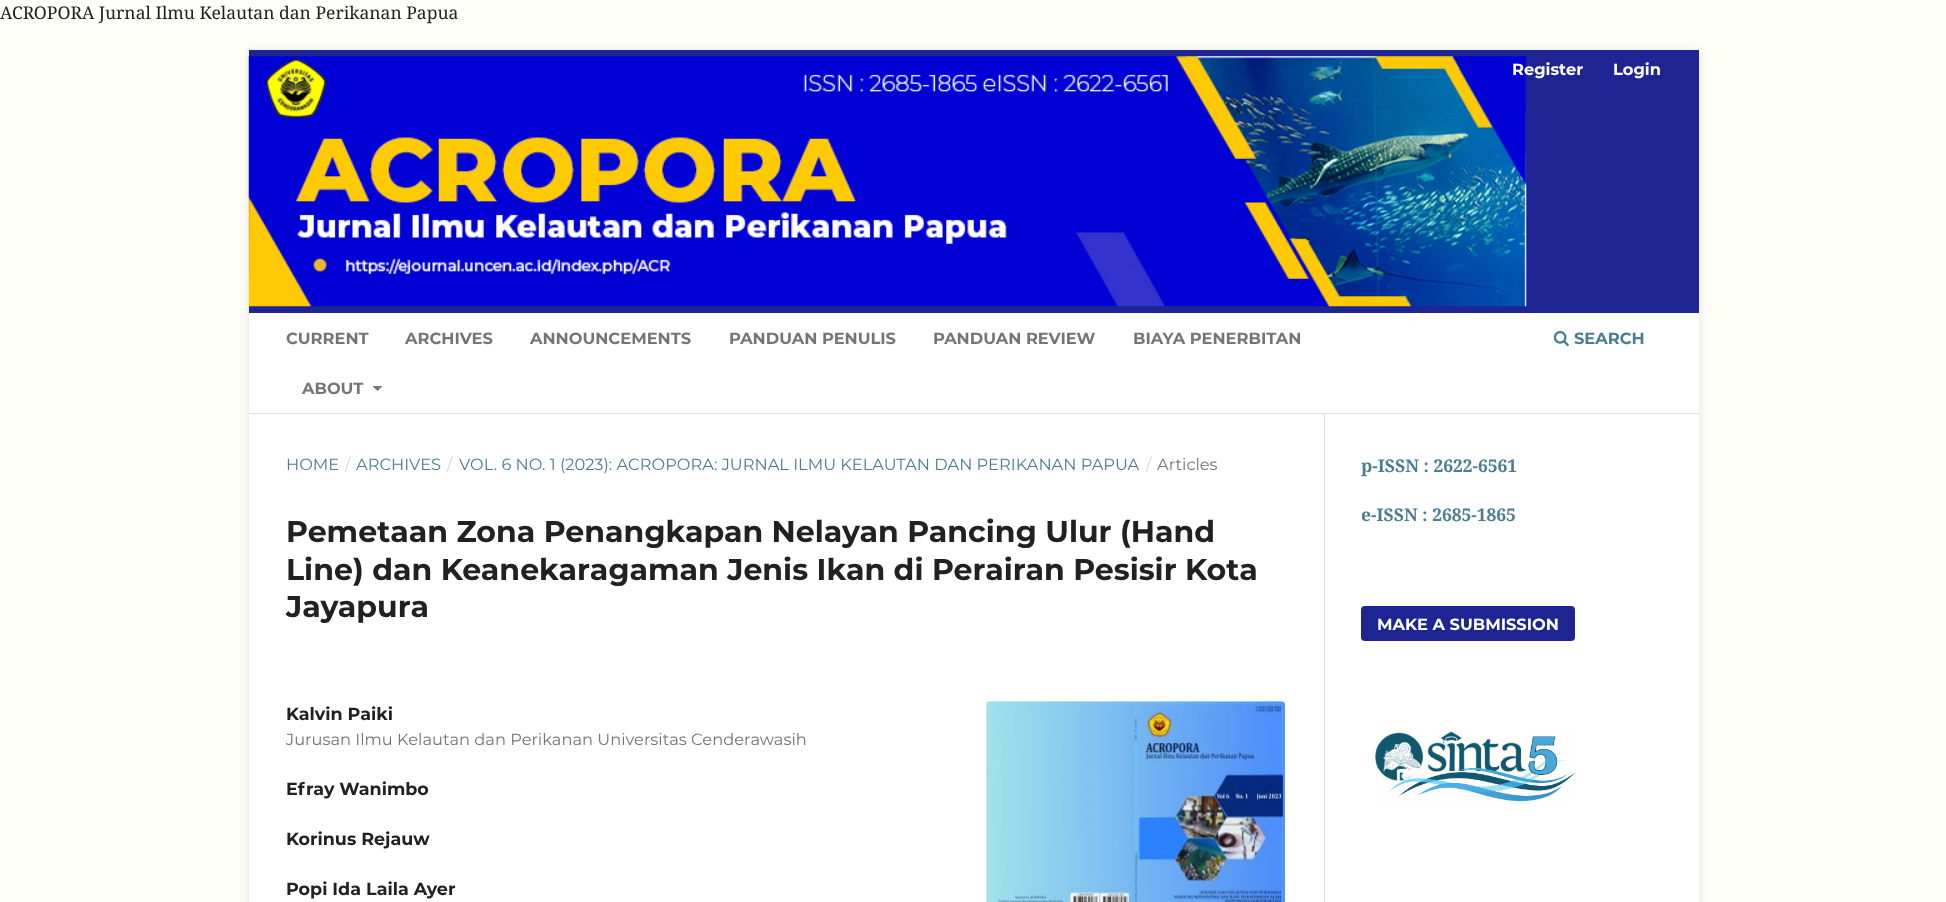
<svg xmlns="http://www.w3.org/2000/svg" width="1946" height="902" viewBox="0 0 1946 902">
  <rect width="100%" height="100%" fill="#fffffa"/>
  <path d="M249 50h1450v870H249z" fill="#0000001a" filter="blur(6px)"/>
  <path d="M249 414h1450v488H249z" fill="#fff"/>
  <path d="M249 413h1450v1H249z" fill="#ddd"/>
  <path d="M249 50h1450v263H249z" fill="#1e2592"/>
  <image x="248" y="56" width="1279" height="251" href="img/1.png"/>
  <path d="M249 313h1450v100H249z" fill="#fff"/>
  <path d="M372.5 386H382.5L377.5 391Z" fill="#757575"/>
  <image x="1553" y="331" width="16" height="16" href="img/2.png"/>
  <image x="986" y="701" width="299" height="201" href="img/3.png"/>
  <path d="M1324 414h1v488H1324z" fill="#ddd"/>
  <rect x="1361" y="606" width="214" height="35" rx="4" fill="#1e2592"/>
  <image x="1375" y="731" width="200" height="71" href="img/4.png"/>
  <text x="0" y="19" font-family="Noto Serif" font-size="17.5" fill="#212121">ACROPORA Jurnal Ilmu Kelautan dan Perikanan Papua</text>
  <g font-family="Montserrat" font-size="16.25" font-weight="bold" fill="#fff">
    <text x="1512" y="75">Register</text>
    <text x="1613" y="75">Login</text>
  </g>
  <g font-family="Montserrat" font-size="16.25" font-weight="bold" fill="#757575">
    <text x="286" y="344">CURRENT</text>
    <text x="405" y="344">ARCHIVES</text>
    <text x="530" y="344">ANNOUNCEMENTS</text>
    <text x="729" y="344">PANDUAN PENULIS</text>
    <text x="933" y="344">PANDUAN REVIEW</text>
    <text x="1133" y="344">BIAYA PENERBITAN</text>
    <text x="302" y="394">ABOUT</text>
  </g>
  <text x="1574" y="344" font-family="Montserrat" font-size="16.25" font-weight="bold" fill="#4b7d92">SEARCH</text>
  <text x="286" y="470" font-family="Montserrat" font-size="16.25" fill="#4b7d92">HOME</text>
  <text x="345" y="470" font-family="Montserrat" font-size="16.25" fill="#d6d6d6">/</text>
  <text x="356" y="470" font-family="Montserrat" font-size="16.25" fill="#4b7d92">ARCHIVES</text>
  <text x="447" y="470" font-family="Montserrat" font-size="16.25" fill="#d6d6d6">/</text>
  <text x="459" y="470" font-family="Montserrat" font-size="16.25" fill="#4b7d92">VOL. 6 NO. 1 (2023): ACROPORA: JURNAL ILMU KELAUTAN DAN PERIKANAN PAPUA</text>
  <text x="1146" y="470" font-family="Montserrat" font-size="16.25" fill="#d6d6d6">/</text>
  <text x="1157" y="470" font-family="Montserrat" font-size="16.25" fill="#757575">Articles</text>
  <g font-family="Montserrat" font-size="30" font-weight="bold" fill="#212121">
    <text x="286" y="542">Pemetaan Zona Penangkapan Nelayan Pancing Ulur (Hand</text>
    <text x="286" y="580">Line) dan Keanekaragaman Jenis Ikan di Perairan Pesisir Kota</text>
    <text x="286" y="617">Jayapura</text>
  </g>
  <text x="286" y="720" font-family="Montserrat" font-size="17.5" font-weight="bold" fill="#212121">Kalvin Paiki</text>
  <text x="286" y="745" font-family="Montserrat" font-size="16.25" fill="#757575">Jurusan Ilmu Kelautan dan Perikanan Universitas Cenderawasih</text>
  <g font-family="Montserrat" font-size="17.5" font-weight="bold" fill="#212121">
    <text x="286" y="795">Efray Wanimbo</text>
    <text x="286" y="845">Korinus Rejauw</text>
    <text x="286" y="895">Popi Ida Laila Ayer</text>
  </g>
  <g font-family="Noto Serif" font-size="17.5" font-weight="bold" fill="#4b7d92">
    <text x="1361" y="472">p-ISSN : 2622-6561</text>
    <text x="1361" y="521">e-ISSN : 2685-1865</text>
  </g>
  <text x="1377" y="630" font-family="Montserrat" font-size="16.25" font-weight="bold" fill="#fff">MAKE A SUBMISSION</text>
</svg>
